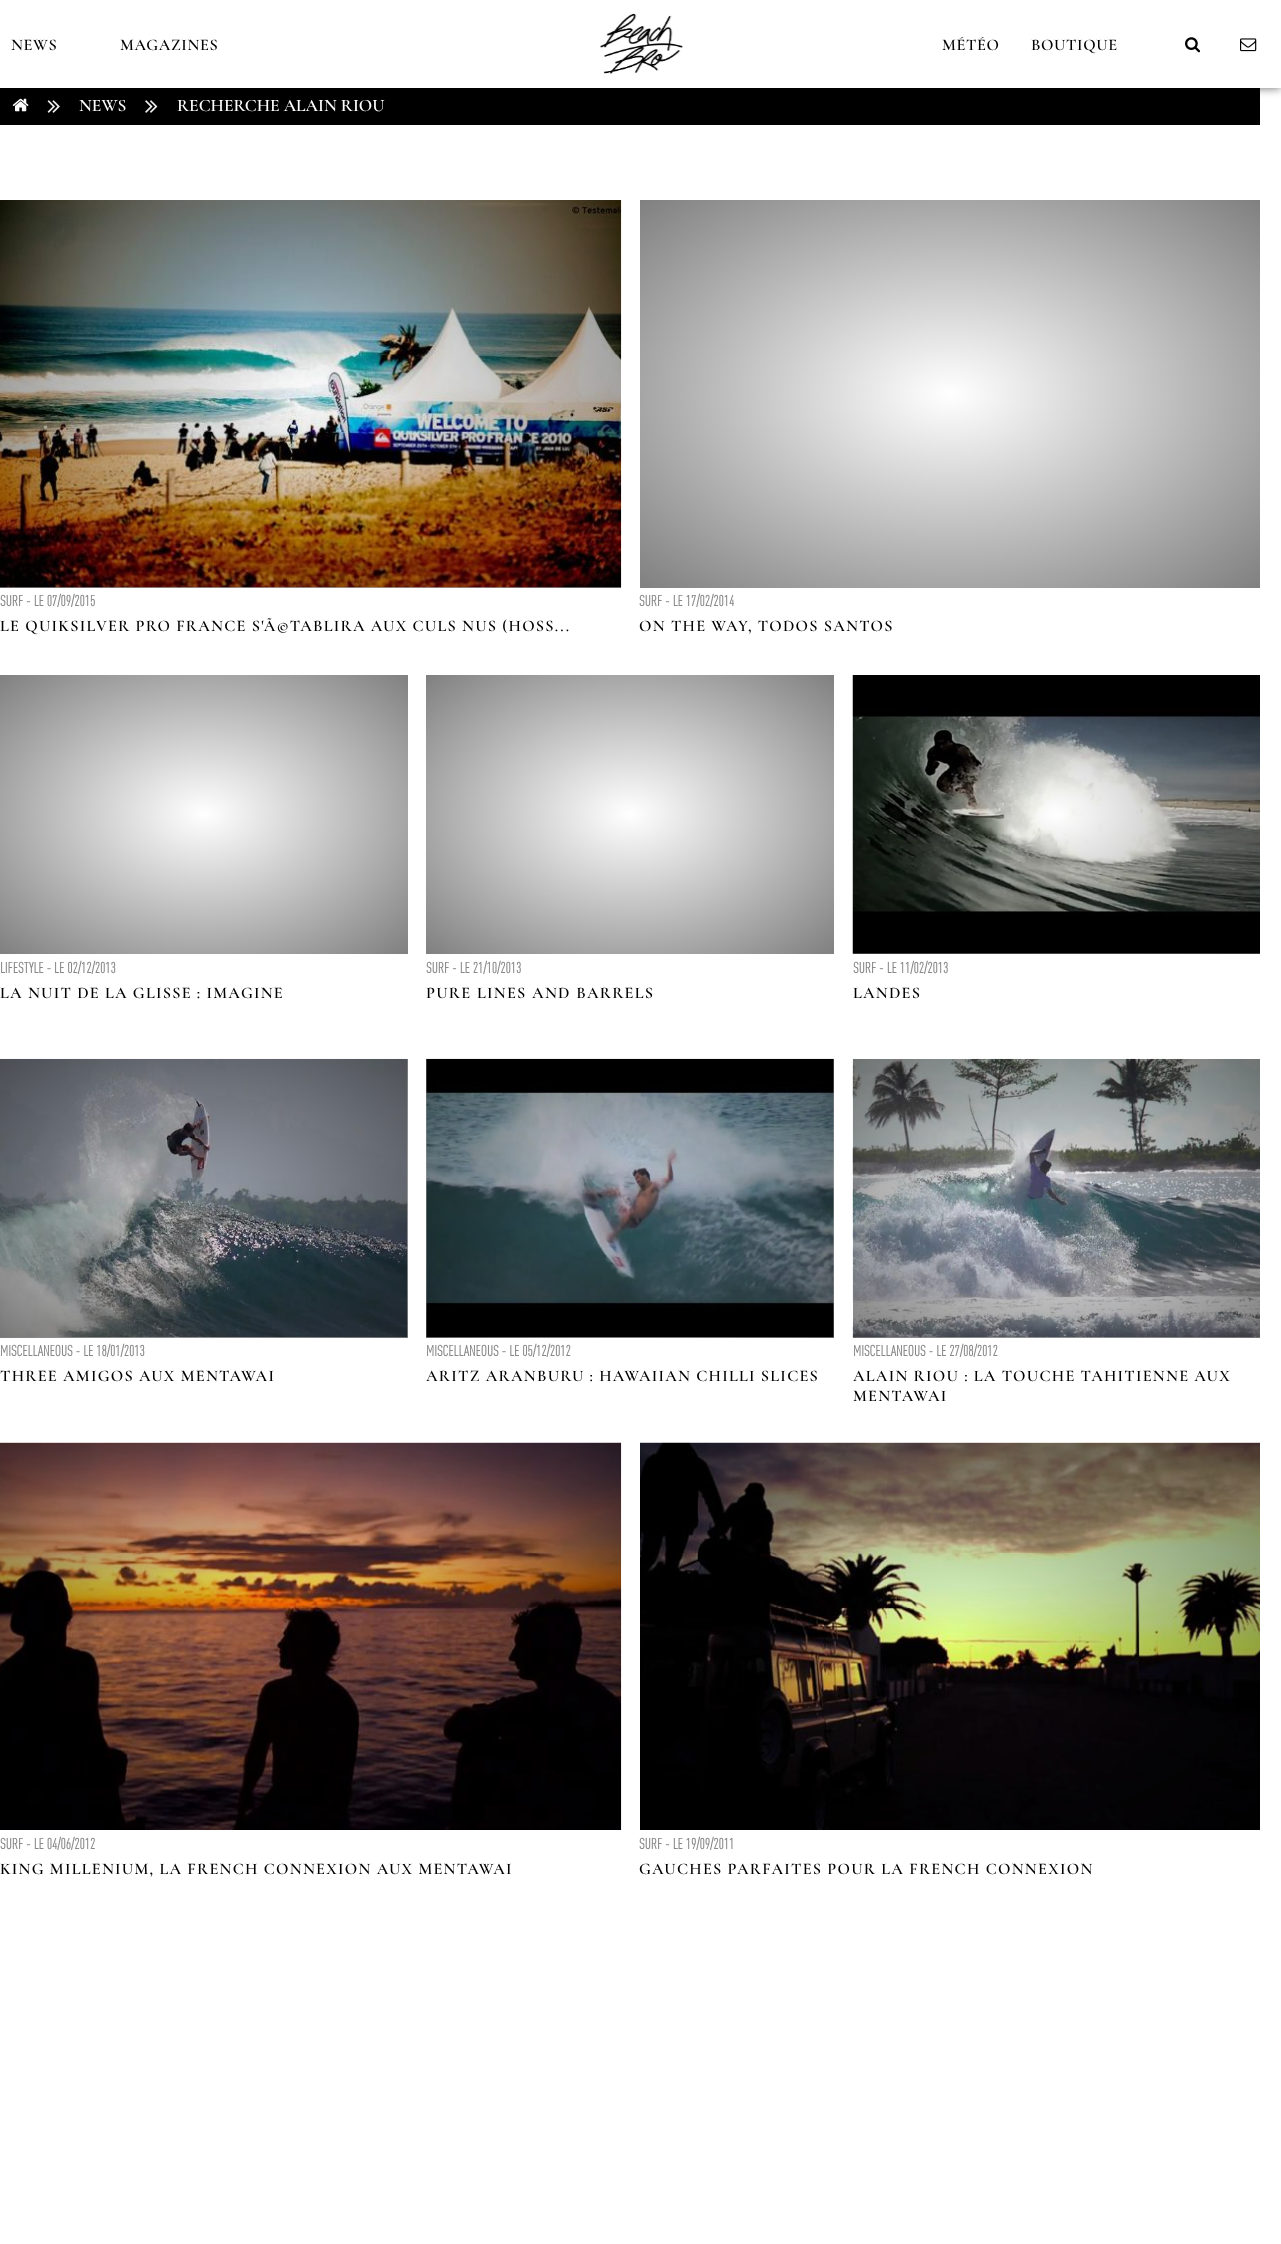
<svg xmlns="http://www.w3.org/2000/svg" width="1281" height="2244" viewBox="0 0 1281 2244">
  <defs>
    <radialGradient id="g1" gradientUnits="userSpaceOnUse" cx="0" cy="0" r="1" gradientTransform="matrix(439 0 0 274 311 394)"><stop offset="0" stop-color="#000" stop-opacity="0"/><stop offset="1" stop-color="#000" stop-opacity="0.5"/></radialGradient>
    <radialGradient id="g2" gradientUnits="userSpaceOnUse" cx="0" cy="0" r="1" gradientTransform="matrix(438 0 0 274 950 394)"><stop offset="0" stop-color="#fff"/><stop offset="1" stop-color="#808080"/></radialGradient>
    <radialGradient id="g3" gradientUnits="userSpaceOnUse" cx="0" cy="0" r="1" gradientTransform="matrix(288 0 0 197 204 814)"><stop offset="0" stop-color="#fff"/><stop offset="1" stop-color="#808080"/></radialGradient>
    <radialGradient id="g4" gradientUnits="userSpaceOnUse" cx="0" cy="0" r="1" gradientTransform="matrix(288 0 0 197 630 814)"><stop offset="0" stop-color="#fff"/><stop offset="1" stop-color="#808080"/></radialGradient>
    <radialGradient id="g5" gradientUnits="userSpaceOnUse" cx="0" cy="0" r="1" gradientTransform="matrix(288 0 0 197 1056 814)"><stop offset="0" stop-color="#000" stop-opacity="0"/><stop offset="1" stop-color="#000" stop-opacity="0.5"/></radialGradient>
    <radialGradient id="g6" gradientUnits="userSpaceOnUse" cx="0" cy="0" r="1" gradientTransform="matrix(288 0 0 197 204 1198)"><stop offset="0" stop-color="#000" stop-opacity="0"/><stop offset="1" stop-color="#000" stop-opacity="0.5"/></radialGradient>
    <radialGradient id="g7" gradientUnits="userSpaceOnUse" cx="0" cy="0" r="1" gradientTransform="matrix(288 0 0 197 630 1198)"><stop offset="0" stop-color="#000" stop-opacity="0"/><stop offset="1" stop-color="#000" stop-opacity="0.5"/></radialGradient>
    <radialGradient id="g8" gradientUnits="userSpaceOnUse" cx="0" cy="0" r="1" gradientTransform="matrix(288 0 0 197 1056 1198)"><stop offset="0" stop-color="#000" stop-opacity="0"/><stop offset="1" stop-color="#000" stop-opacity="0.5"/></radialGradient>
  </defs>
  <rect width="100%" height="100%" fill="#fff"/>
  <path d="M0 88h1260v37H0z" fill="#000"/>
  <image x="12" y="98" width="17" height="14" href="img/4.png"/>
  <image x="47" y="100" width="13" height="13" href="img/5.png"/>
  <image x="145" y="100" width="13" height="13" href="img/6.png"/>
  <path d="M0 0h1281v88H0z" fill="#00000099" filter="blur(5px)"/>
  <path d="M0 0h1281v88H0z" fill="#fff"/>
  <image x="600" y="13" width="83" height="61" href="img/1.png"/>
  <image x="1185" y="37" width="16" height="16" href="img/2.png"/>
  <image x="1240" y="38" width="17" height="14" href="img/3.png"/>
  <image x="0" y="200" width="622" height="388" href="img/7.png"/>
  <path d="M0 200h621v388H0z" fill="url(#g1)"/>
  <path d="M640 200h620v388H640z" fill="url(#g2)"/>
  <path d="M0 675h408v279H0z" fill="url(#g3)"/>
  <path d="M426 675h408v279H426z" fill="url(#g4)"/>
  <image x="852" y="675" width="408" height="279" href="img/8.png"/>
  <path d="M853 715h407v239H853z" fill="url(#g5)"/>
  <image x="0" y="1058" width="408" height="280" href="img/9.png"/>
  <path d="M0 1059h408v279H0z" fill="url(#g6)"/>
  <image x="426" y="1058" width="408" height="280" href="img/10.png"/>
  <path d="M426 1059h408v279H426z" fill="url(#g7)"/>
  <image x="852" y="1058" width="408" height="280" href="img/11.png"/>
  <path d="M853 1059h407v279H853z" fill="url(#g8)"/>
  <image x="0" y="1442" width="622" height="388" href="img/12.png"/>
  <image x="640" y="1442" width="620" height="388" href="img/13.png"/>
  <g font-family="Cormorant Garamond" font-size="16.25" font-weight="600" letter-spacing="0.6" fill="#000">
    <text x="11" y="50">NEWS</text>
    <text x="120" y="50">MAGAZINES</text>
    <text x="942" y="50">MÉTÉO</text>
    <text x="1031" y="50">BOUTIQUE</text>
  </g>
  <g font-family="Cormorant Garamond" font-size="17.5" font-weight="600" fill="#fff">
    <text x="79" y="111">NEWS</text>
    <text x="177" y="111">RECHERCHE ALAIN RIOU</text>
  </g>
  <text x="0" y="606" font-family="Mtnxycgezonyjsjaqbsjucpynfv" font-size="15" font-weight="bold" fill="#888">SURF - LE 07/09/2015</text>
  <text x="0" y="631" font-family="Cormorant Garamond" font-size="16.25" font-weight="600" letter-spacing="1.25" fill="#000">LE QUIKSILVER PRO FRANCE S'Ã©TABLIRA AUX CULS NUS (HOSS...</text>
  <text x="639" y="606" font-family="Mtnxycgezonyjsjaqbsjucpynfv" font-size="15" font-weight="bold" fill="#888">SURF - LE 17/02/2014</text>
  <text x="639" y="631" font-family="Cormorant Garamond" font-size="16.25" font-weight="600" letter-spacing="1.25" fill="#000">ON THE WAY, TODOS SANTOS</text>
  <text x="0" y="973" font-family="Mtnxycgezonyjsjaqbsjucpynfv" font-size="15" font-weight="bold" fill="#888">LIFESTYLE - LE 02/12/2013</text>
  <text x="0" y="998" font-family="Cormorant Garamond" font-size="16.25" font-weight="600" letter-spacing="1.25" fill="#000">LA NUIT DE LA GLISSE : IMAGINE</text>
  <text x="426" y="973" font-family="Mtnxycgezonyjsjaqbsjucpynfv" font-size="15" font-weight="bold" fill="#888">SURF - LE 21/10/2013</text>
  <text x="426" y="998" word-spacing="0.5" font-family="Cormorant Garamond" font-size="16.25" font-weight="600" letter-spacing="1.25" fill="#000">PURE LINES AND BARRELS</text>
  <text x="853" y="973" font-family="Mtnxycgezonyjsjaqbsjucpynfv" font-size="15" font-weight="bold" fill="#888">SURF - LE 11/02/2013</text>
  <text x="853" y="998" font-family="Cormorant Garamond" font-size="16.25" font-weight="600" letter-spacing="1.25" fill="#000">LANDES</text>
  <text x="0" y="1356" font-family="Mtnxycgezonyjsjaqbsjucpynfv" font-size="15" font-weight="bold" fill="#888">MISCELLANEOUS - LE 18/01/2013</text>
  <text x="0" y="1381" font-family="Cormorant Garamond" font-size="16.25" font-weight="600" letter-spacing="1.25" fill="#000">THREE AMIGOS AUX MENTAWAI</text>
  <text x="426" y="1356" font-family="Mtnxycgezonyjsjaqbsjucpynfv" font-size="15" font-weight="bold" fill="#888">MISCELLANEOUS - LE 05/12/2012</text>
  <text x="426" y="1381" font-family="Cormorant Garamond" font-size="16.25" font-weight="600" letter-spacing="1.25" fill="#000">ARITZ ARANBURU : HAWAIIAN CHILLI SLICES</text>
  <text x="853" y="1356" font-family="Mtnxycgezonyjsjaqbsjucpynfv" font-size="15" font-weight="bold" fill="#888">MISCELLANEOUS - LE 27/08/2012</text>
  <g font-family="Cormorant Garamond" font-size="16.25" font-weight="600" letter-spacing="1.25" fill="#000">
    <text x="853" y="1381">ALAIN RIOU : LA TOUCHE TAHITIENNE AUX</text>
    <text x="853" y="1401">MENTAWAI</text>
  </g>
  <text x="0" y="1849" font-family="Mtnxycgezonyjsjaqbsjucpynfv" font-size="15" font-weight="bold" fill="#888">SURF - LE 04/06/2012</text>
  <text x="0" y="1874" font-family="Cormorant Garamond" font-size="16.25" font-weight="600" letter-spacing="1.25" fill="#000">KING MILLENIUM, LA FRENCH CONNEXION AUX MENTAWAI</text>
  <text x="639" y="1849" font-family="Mtnxycgezonyjsjaqbsjucpynfv" font-size="15" font-weight="bold" fill="#888">SURF - LE 19/09/2011</text>
  <text x="639" y="1874" font-family="Cormorant Garamond" font-size="16.25" font-weight="600" letter-spacing="1.25" fill="#000">GAUCHES PARFAITES POUR LA FRENCH CONNEXION</text>
</svg>
